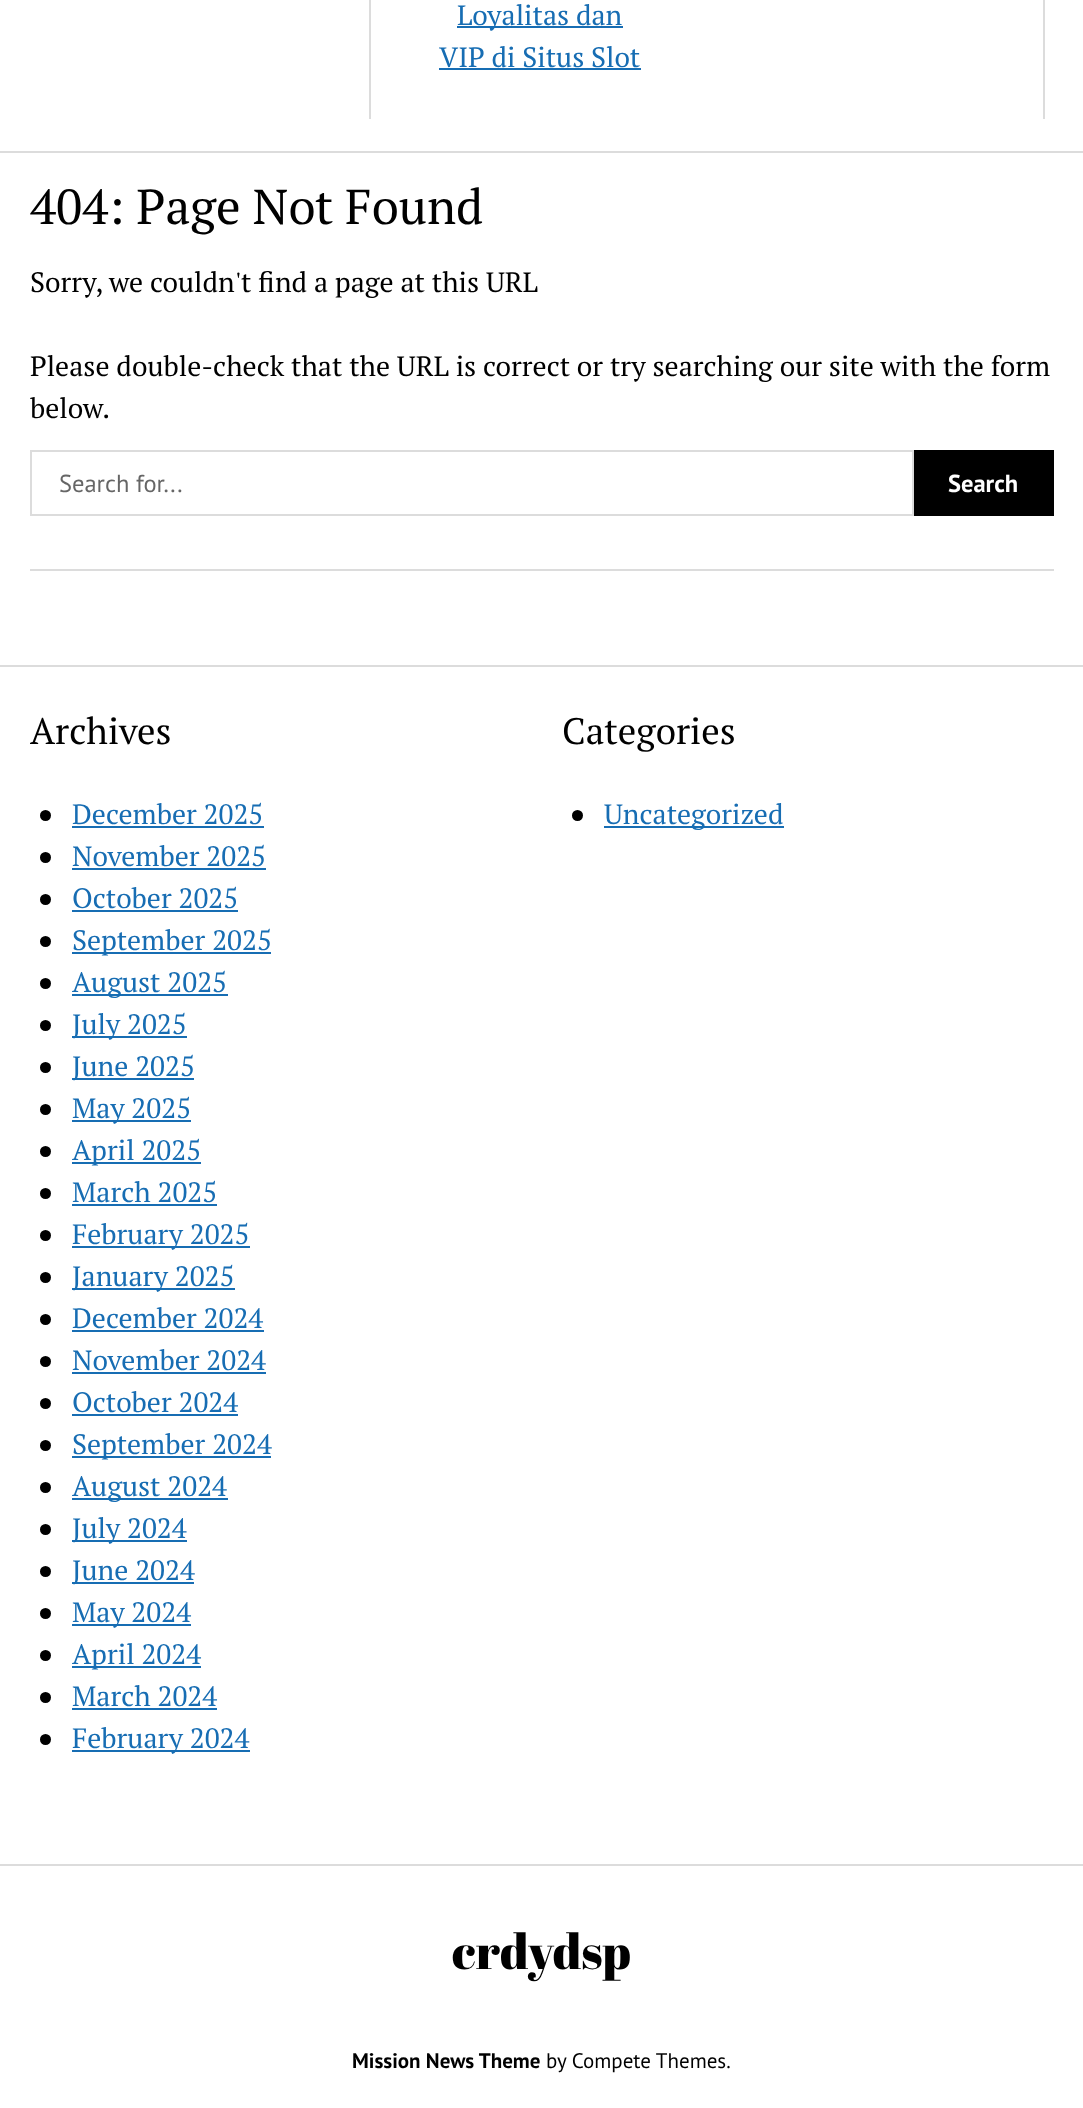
<svg xmlns="http://www.w3.org/2000/svg" width="1083" height="2108" viewBox="0 0 1083 2108">
  <rect width="100%" height="100%" fill="#fff"/>
  <path d="M0 151h1083v2H0z" fill="#dcdcdc"/>
  <path d="M369 0h2v119H369z" fill="#dcdcdc"/>
  <path d="M457 26h166v2H457z" fill="#176db3"/>
  <path d="M439 68h202v2H439z" fill="#176db3"/>
  <path d="M1043 0h2v119H1043z" fill="#dcdcdc"/>
  <path d="M30 569h1024v2H30z" fill="#dcdcdc"/>
  <path d="M31 451h882v64H31z" fill="none" stroke="#dcdcdc" stroke-width="2"/>
  <path d="M914 450h140v66H914z" fill="#000"/>
  <path d="M0 665h1083v2H0z" fill="#dcdcdc"/>
  <circle cx="45.5" cy="815.5" r="5.5" fill="#000"/>
  <path d="M72 826h192v2H72z" fill="#176db3"/>
  <circle cx="45.5" cy="857.5" r="5.5" fill="#000"/>
  <path d="M72 868h194v2H72z" fill="#176db3"/>
  <circle cx="45.5" cy="899.5" r="5.5" fill="#000"/>
  <path d="M72 910h166v2H72z" fill="#176db3"/>
  <circle cx="45.5" cy="941.5" r="5.5" fill="#000"/>
  <path d="M72 952h199v2H72z" fill="#176db3"/>
  <circle cx="45.5" cy="983.5" r="5.5" fill="#000"/>
  <path d="M72 994h156v2H72z" fill="#176db3"/>
  <circle cx="45.5" cy="1025.5" r="5.5" fill="#000"/>
  <path d="M72 1036h115v2H72z" fill="#176db3"/>
  <circle cx="45.5" cy="1067.5" r="5.5" fill="#000"/>
  <path d="M72 1078h122v2H72z" fill="#176db3"/>
  <circle cx="45.5" cy="1109.5" r="5.5" fill="#000"/>
  <path d="M72 1120h119v2H72z" fill="#176db3"/>
  <circle cx="45.5" cy="1151.5" r="5.5" fill="#000"/>
  <path d="M72 1162h129v2H72z" fill="#176db3"/>
  <circle cx="45.5" cy="1193.5" r="5.5" fill="#000"/>
  <path d="M72 1204h145v2H72z" fill="#176db3"/>
  <circle cx="45.5" cy="1235.5" r="5.5" fill="#000"/>
  <path d="M72 1246h178v2H72z" fill="#176db3"/>
  <circle cx="45.5" cy="1277.5" r="5.5" fill="#000"/>
  <path d="M72 1288h163v2H72z" fill="#176db3"/>
  <circle cx="45.5" cy="1319.5" r="5.5" fill="#000"/>
  <path d="M72 1330h192v2H72z" fill="#176db3"/>
  <circle cx="45.5" cy="1361.5" r="5.5" fill="#000"/>
  <path d="M72 1372h194v2H72z" fill="#176db3"/>
  <circle cx="45.5" cy="1403.5" r="5.5" fill="#000"/>
  <path d="M72 1414h166v2H72z" fill="#176db3"/>
  <circle cx="45.5" cy="1445.5" r="5.5" fill="#000"/>
  <path d="M72 1456h199v2H72z" fill="#176db3"/>
  <circle cx="45.5" cy="1487.5" r="5.5" fill="#000"/>
  <path d="M72 1498h156v2H72z" fill="#176db3"/>
  <circle cx="45.5" cy="1529.5" r="5.5" fill="#000"/>
  <path d="M72 1540h115v2H72z" fill="#176db3"/>
  <circle cx="45.5" cy="1571.5" r="5.5" fill="#000"/>
  <path d="M72 1582h122v2H72z" fill="#176db3"/>
  <circle cx="45.5" cy="1613.5" r="5.5" fill="#000"/>
  <path d="M72 1624h119v2H72z" fill="#176db3"/>
  <circle cx="45.5" cy="1655.5" r="5.5" fill="#000"/>
  <path d="M72 1666h129v2H72z" fill="#176db3"/>
  <circle cx="45.5" cy="1697.5" r="5.5" fill="#000"/>
  <path d="M72 1708h145v2H72z" fill="#176db3"/>
  <circle cx="45.5" cy="1739.5" r="5.5" fill="#000"/>
  <path d="M72 1750h178v2H72z" fill="#176db3"/>
  <circle cx="577.5" cy="815.5" r="5.5" fill="#000"/>
  <path d="M604 826h180v2H604z" fill="#176db3"/>
  <path d="M0 1864h1083v2H0z" fill="#dcdcdc"/>
  <g font-family="PT Serif" font-size="28" fill="#176db3">
    <text x="457" y="25">Loyalitas dan</text>
    <text x="439" y="67">VIP di Situs Slot</text>
  </g>
  <text x="30" y="224" font-family="PT Serif" font-size="49" fill="#000">404: Page Not Found</text>
  <g font-family="PT Serif" font-size="28" fill="#000">
    <text x="30" y="292">Sorry, we couldn't find a page at this URL</text>
    <text x="30" y="376">Please double-check that the URL is correct or try searching our site with the form</text>
    <text x="30" y="418">below.</text>
  </g>
  <text x="59" y="492" font-family="PT Sans" font-size="24.5" fill="#666">Search for...</text>
  <text x="948" y="492" font-family="PT Sans" font-size="24.5" font-weight="bold" fill="#fff">Search</text>
  <text x="30" y="744" font-family="PT Serif" font-size="36.75" fill="#000">Archives</text>
  <g font-family="PT Serif" font-size="28" fill="#176db3">
    <text x="72" y="824">December 2025</text>
    <text x="72" y="866">November 2025</text>
    <text x="72" y="908">October 2025</text>
    <text x="72" y="950">September 2025</text>
    <text x="72" y="992">August 2025</text>
    <text x="72" y="1034">July 2025</text>
    <text x="72" y="1076">June 2025</text>
    <text x="72" y="1118">May 2025</text>
    <text x="72" y="1160">April 2025</text>
    <text x="72" y="1202">March 2025</text>
    <text x="72" y="1244">February 2025</text>
    <text x="72" y="1286">January 2025</text>
    <text x="72" y="1328">December 2024</text>
    <text x="72" y="1370">November 2024</text>
    <text x="72" y="1412">October 2024</text>
    <text x="72" y="1454">September 2024</text>
    <text x="72" y="1496">August 2024</text>
    <text x="72" y="1538">July 2024</text>
    <text x="72" y="1580">June 2024</text>
    <text x="72" y="1622">May 2024</text>
    <text x="72" y="1664">April 2024</text>
    <text x="72" y="1706">March 2024</text>
    <text x="72" y="1748">February 2024</text>
  </g>
  <text x="562" y="744" font-family="PT Serif" font-size="36.75" fill="#000">Categories</text>
  <text x="604" y="824" font-family="PT Serif" font-size="28" fill="#176db3">Uncategorized</text>
  <text x="452" y="1969" font-family="Abril Fatface" font-size="49" fill="#000">crdydsp</text>
  <text x="352" y="2068" font-family="PT Sans" font-size="21" font-weight="bold" fill="#000">Mission News Theme</text>
  <text x="546" y="2068" font-family="PT Sans" font-size="21" fill="#000">by Compete Themes.</text>
</svg>
